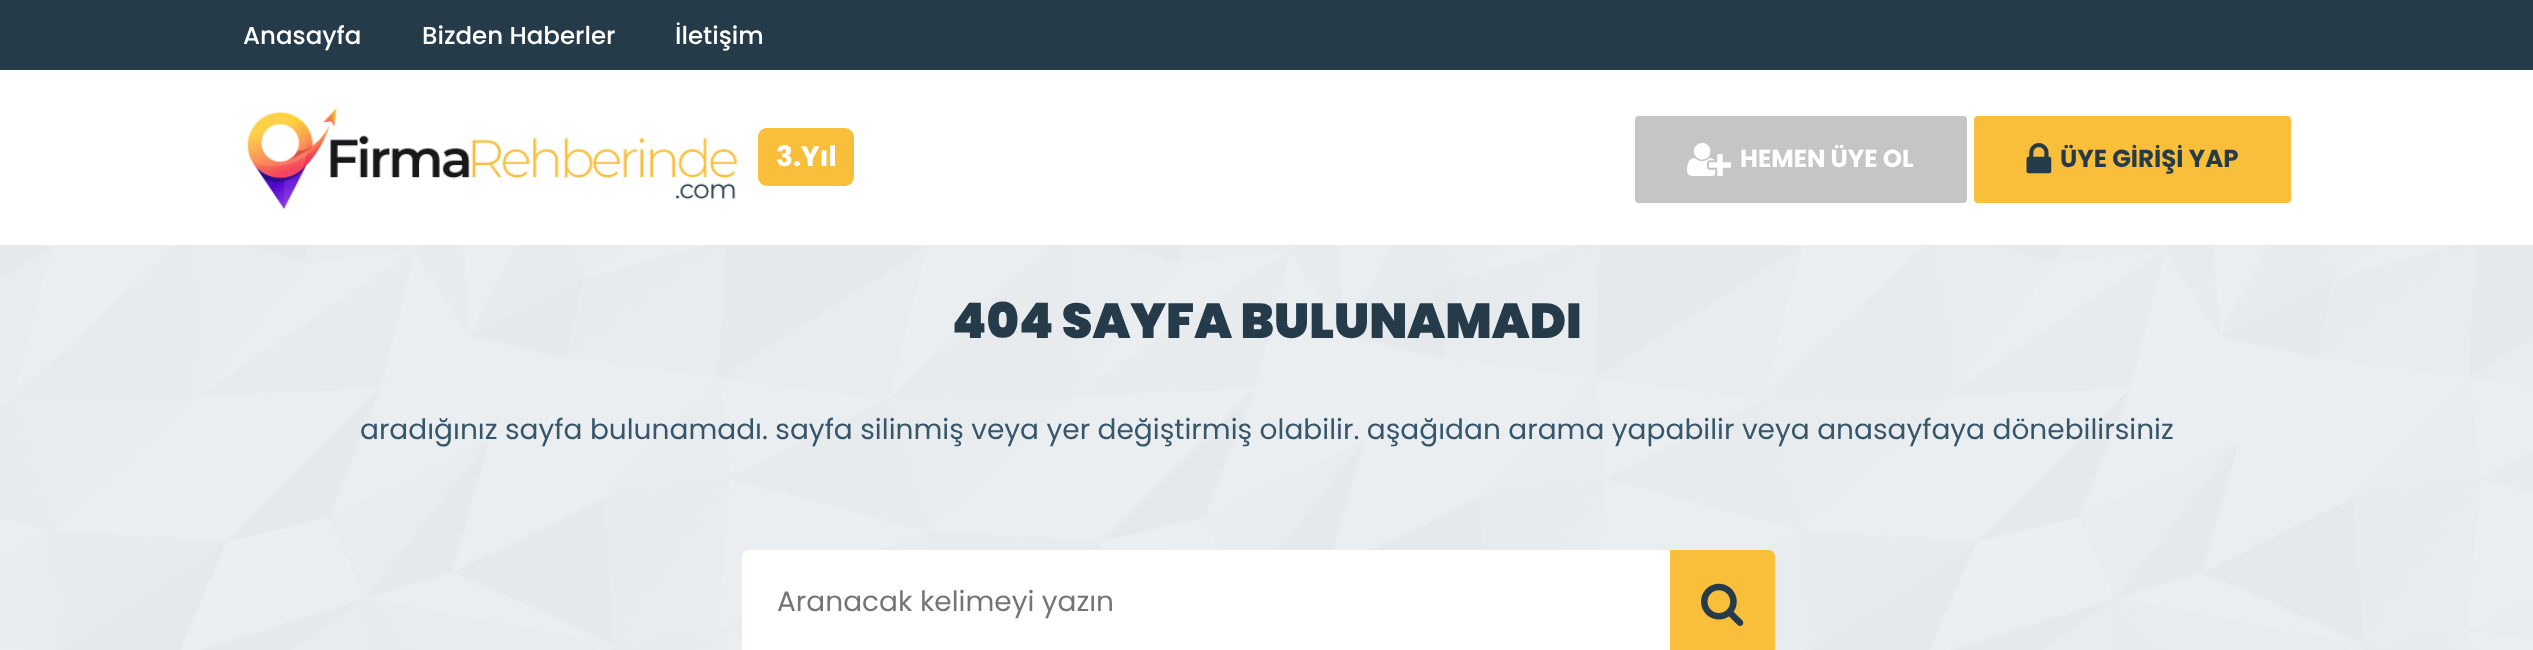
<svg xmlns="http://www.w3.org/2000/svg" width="2533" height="650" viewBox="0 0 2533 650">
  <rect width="100%" height="100%" fill="#fff"/>
  <image x="0" y="245" width="2533" height="405" href="img/1.png"/>
  <path d="M0 0h2533v70H0z" fill="#253b49"/>
  <image x="247" y="107" width="491" height="103" href="img/2.png"/>
  <rect x="758" y="128" width="96" height="58" rx="9" fill="#f9bf3b"/>
  <rect x="1635" y="116" width="332" height="87" rx="4" fill="#c5c5c5"/>
  <image x="1687" y="143" width="44" height="33" href="img/3.png"/>
  <rect x="1974" y="116" width="317" height="87" rx="4" fill="#f9bf3b"/>
  <image x="2026" y="143" width="26" height="31" href="img/4.png"/>
  <path d="M749 550H1670V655H749C745 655 742 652 742 648V557C742 553 745 550 749 550Z" fill="#fff"/>
  <path d="M1670 550H1768C1772 550 1775 553 1775 557V648C1775 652 1772 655 1768 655H1670Z" fill="#f9bf3b"/>
  <image x="1701" y="583" width="43" height="43" href="img/5.png"/>
  <g font-family="Poppins" font-size="24.5" font-weight="500" fill="#fff">
    <text x="243" y="44">Anasayfa</text>
    <text x="422" y="44">Bizden Haberler</text>
    <text x="675" y="44">İletişim</text>
  </g>
  <text x="776" y="166" font-family="Poppins" font-size="28" font-weight="bold" fill="#fff">3.Yıl</text>
  <text x="1740" y="167" font-family="Poppins" font-size="24.5" font-weight="bold" fill="#fff">HEMEN ÜYE OL</text>
  <text x="2060" y="167" font-family="Poppins" font-size="24.5" font-weight="bold" fill="#253b49">ÜYE GİRİŞİ YAP</text>
  <text x="952" y="338" font-family="Poppins" font-size="49" font-weight="900" fill="#253b49">404 SAYFA BULUNAMADI</text>
  <text x="360" y="439" font-family="Poppins" font-size="28" fill="#36566b">aradığınız sayfa bulunamadı. sayfa silinmiş veya yer değiştirmiş olabilir. aşağıdan arama yapabilir veya anasayfaya dönebilirsiniz</text>
  <text x="777" y="611" font-family="Poppins" font-size="28" fill="#757575">Aranacak kelimeyi yazın</text>
</svg>
